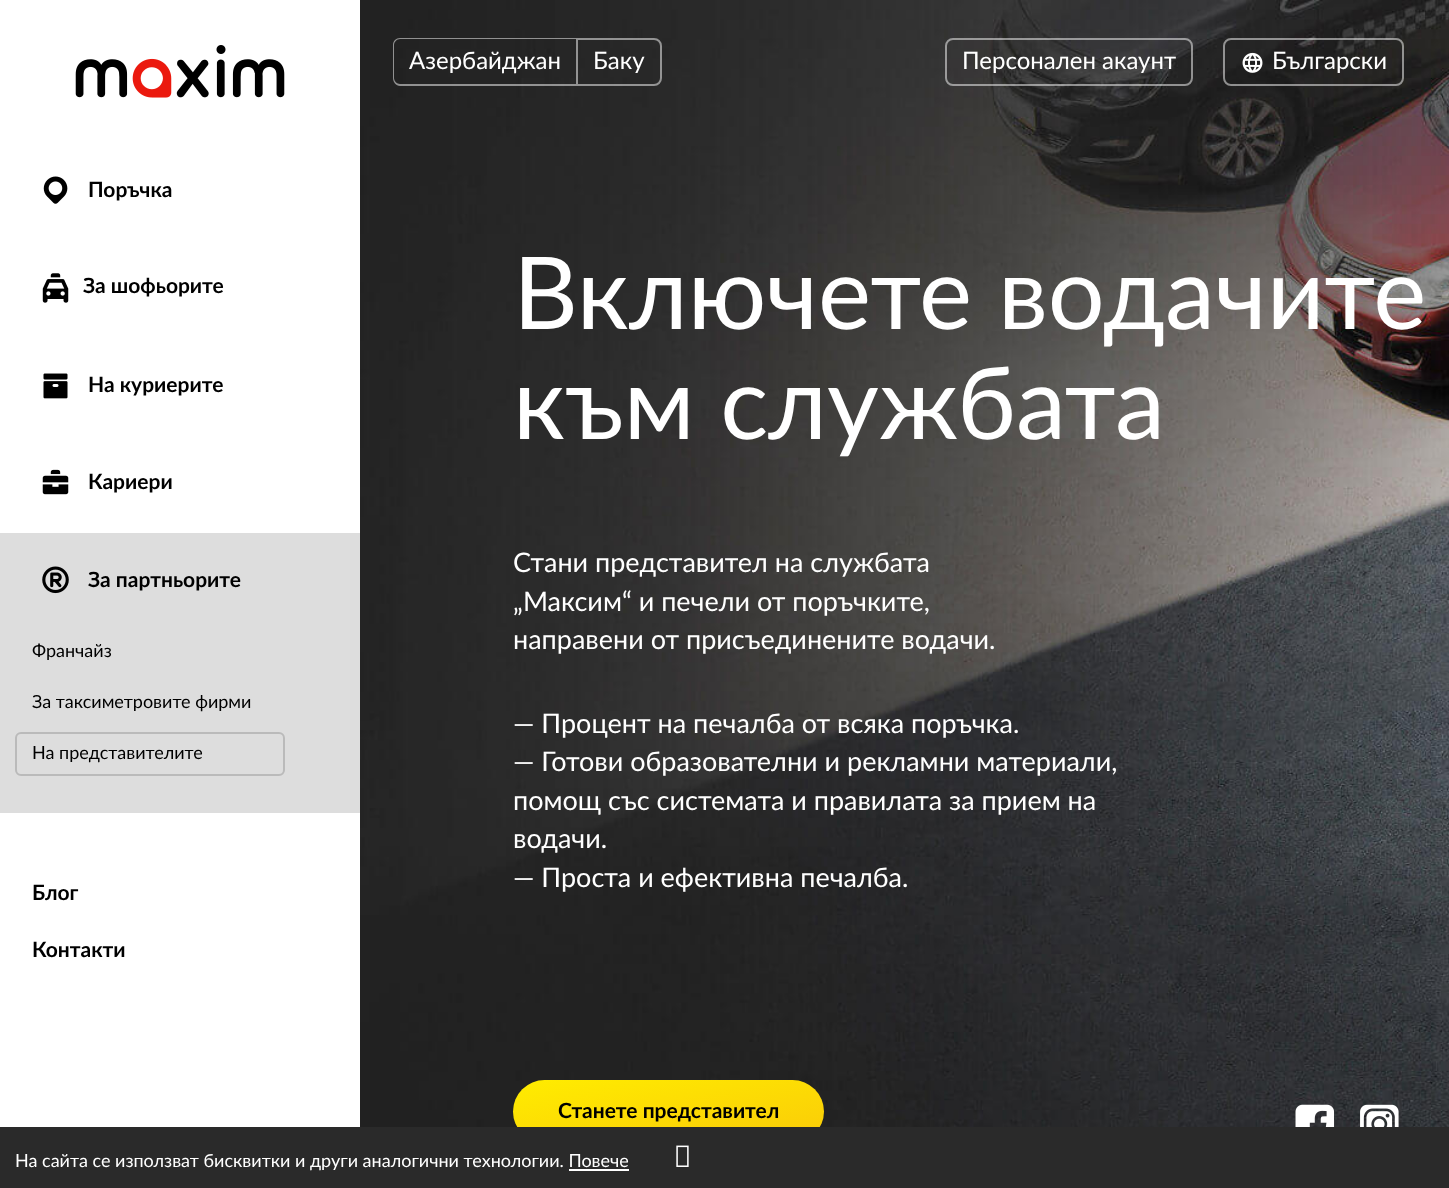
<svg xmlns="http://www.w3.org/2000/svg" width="1449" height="1188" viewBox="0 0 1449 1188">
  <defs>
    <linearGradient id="g1" gradientUnits="userSpaceOnUse" x1="656" y1="1051" x2="681" y2="1172"><stop offset="0" stop-color="#ffec00"/><stop offset="1" stop-color="#facb08"/></linearGradient>
  </defs>
  <rect width="100%" height="100%" fill="#fff"/>
  <image x="75" y="45" width="210" height="53" href="img/1.png"/>
  <image x="43" y="176" width="25" height="28" href="img/2.png"/>
  <image x="42" y="273" width="27" height="30" href="img/3.png"/>
  <image x="43" y="373" width="25" height="26" href="img/4.png"/>
  <image x="42" y="469" width="27" height="26" href="img/5.png"/>
  <path d="M0 533h360v280H0z" fill="#ddd"/>
  <image x="42" y="566" width="27" height="28" href="img/6.png"/>
  <rect x="16" y="733" width="268" height="42" rx="5" fill="none" stroke="#bababa" stroke-width="2"/>
  <image x="360" y="0" width="1089" height="1127" href="img/7.png"/>
  <path d="M400 38H576V86H400C396 86 393 82 393 78V45C393 41 396 38 400 38ZM400 39H576V84H400C397 84 394 81 394 78V45C394 42 397 39 400 39Z" fill="#ffffff80" fill-rule="evenodd"/>
  <path d="M577 39H654C658 39 661 42 661 46V78C661 82 658 85 654 85H577Z" fill="none" stroke="#ffffff80" stroke-width="2"/>
  <rect x="946" y="39" width="246" height="46" rx="7" fill="none" stroke="#ffffff80" stroke-width="2"/>
  <rect x="1224" y="39" width="179" height="46" rx="7" fill="none" stroke="#ffffff80" stroke-width="2"/>
  <image x="1242" y="52" width="21" height="21" href="img/8.png"/>
  <rect x="513" y="1080" width="311" height="63" rx="31.5" fill="url(#g1)"/>
  <image x="1295" y="1104" width="40" height="23" href="img/9.png"/>
  <image x="1360" y="1104" width="39" height="23" href="img/10.png"/>
  <path d="M0 1127h1449v61H0z" fill="#2a2a2a"/>
  <image x="676" y="1145" width="13" height="22" href="img/11.png"/>
  <path d="M569 1169h60v2H569z" fill="#fff"/>
  <g font-family="Lato" font-size="21" font-weight="bold" fill="#000">
    <text x="88" y="197">Поръчка</text>
    <text x="83" y="293">За шофьорите</text>
    <text x="88" y="392">На куриерите</text>
    <text x="88" y="489">Кариери</text>
    <text x="88" y="587">За партньорите</text>
  </g>
  <g font-family="Lato" font-size="18" fill="#000">
    <text x="32" y="657">Франчайз</text>
    <text x="32" y="708">За таксиметровите фирми</text>
    <text x="32" y="759">На представителите</text>
  </g>
  <g font-family="Lato" font-size="21" font-weight="bold" fill="#000">
    <text x="32" y="900">Блог</text>
    <text x="32" y="957">Контакти</text>
  </g>
  <g font-family="Lato" font-size="24" fill="#fff">
    <text x="409" y="69">Азербайджан</text>
    <text x="593" y="69">Баку</text>
    <text x="962" y="69">Персонален акаунт</text>
    <text x="1272" y="69">Български</text>
  </g>
  <g font-family="Lato" font-size="100.5" fill="#fff">
    <text x="513" y="329">Включете водачите</text>
    <text x="513" y="439">към службата</text>
  </g>
  <g font-family="Lato" font-size="27" fill="#fff">
    <text x="513" y="572">Стани представител на службата</text>
    <text x="513" y="611">„Максим“ и печели от поръчките,</text>
    <text x="513" y="649">направени от присъединените водачи.</text>
    <text x="513" y="733">— Процент на печалба от всяка поръчка.</text>
    <text x="513" y="771">— Готови образователни и рекламни материали,</text>
    <text x="513" y="810">помощ със системата и правилата за прием на</text>
    <text x="513" y="848">водачи.</text>
    <text x="513" y="887">— Проста и ефективна печалба.</text>
  </g>
  <text x="558" y="1118" font-family="Lato" font-size="21" font-weight="bold" fill="#000">Станете представител</text>
  <text x="15" y="1167" font-family="Lato" font-size="18" fill="#fff">На сайта се използват бисквитки и други аналогични технологии. Повече</text>
</svg>
